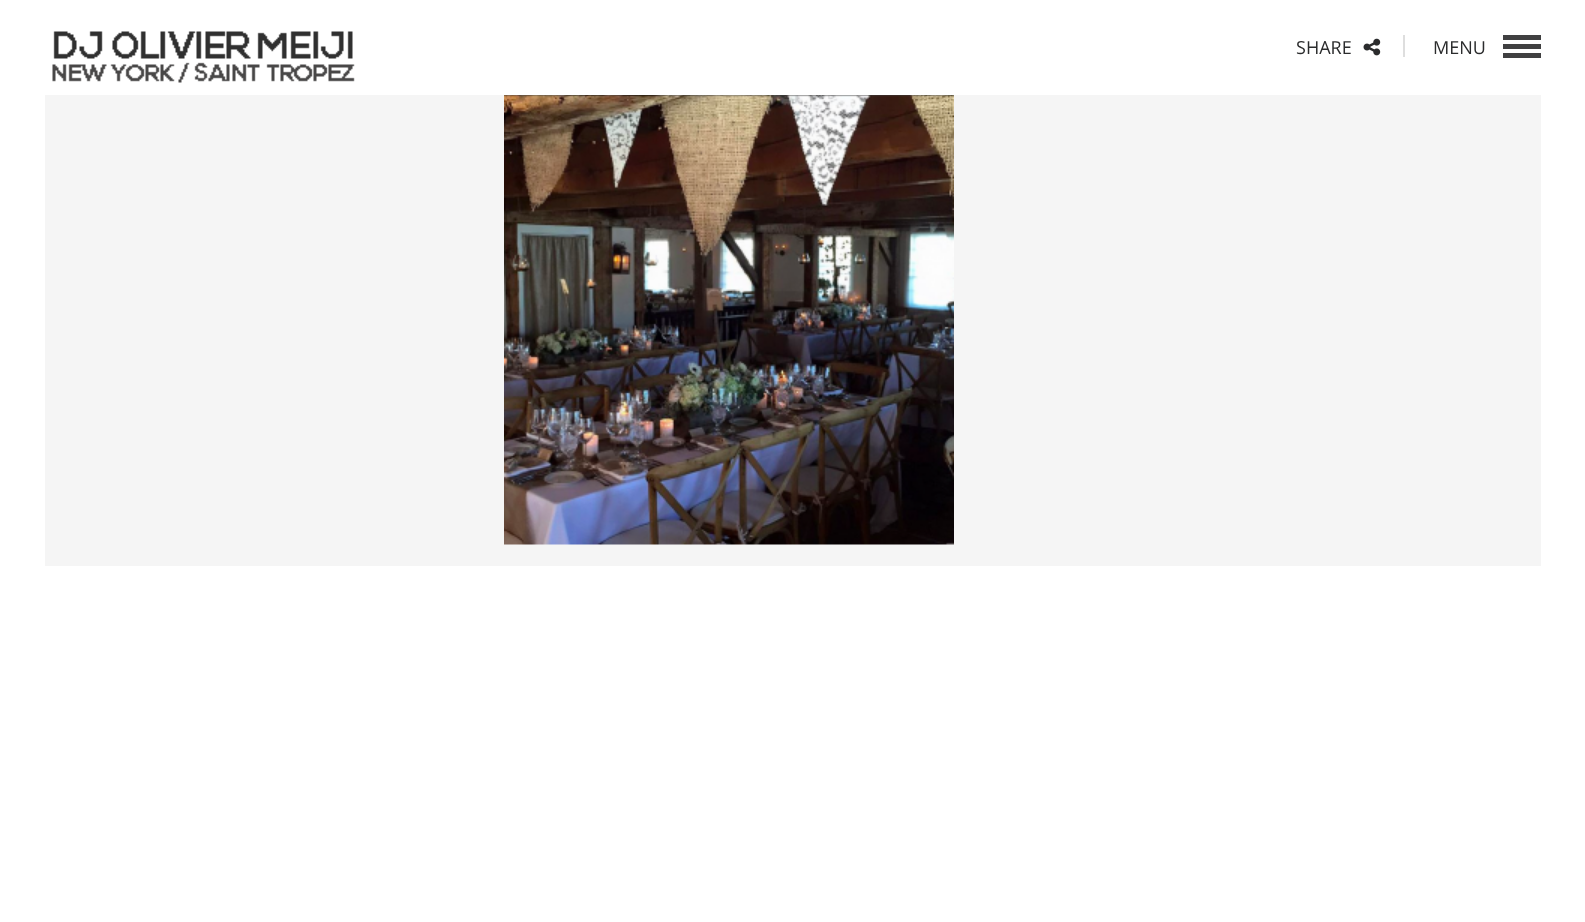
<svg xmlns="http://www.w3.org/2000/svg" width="1585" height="922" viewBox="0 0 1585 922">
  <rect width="100%" height="100%" fill="#fff"/>
  <path d="M45 95h1496v471H45z" fill="#f5f5f5"/>
  <image x="52" y="31" width="303" height="52" href="img/1.png"/>
  <path d="M1403 35h2v22H1403z" fill="#dedede"/>
  <image x="1363" y="38" width="18" height="18" href="img/2.png"/>
  <path d="M1503 35h38v5H1503z" fill="#404041"/>
  <path d="M1503 44h38v5H1503z" fill="#404041"/>
  <path d="M1503 53h38v5H1503z" fill="#404041"/>
  <image x="504" y="95" width="450" height="450" href="img/3.png"/>
  <g font-family="Open Sans" font-size="18" fill="#2b2c2d">
    <text x="1296" y="54">SHARE</text>
    <text x="1433" y="54">MENU</text>
  </g>
</svg>
